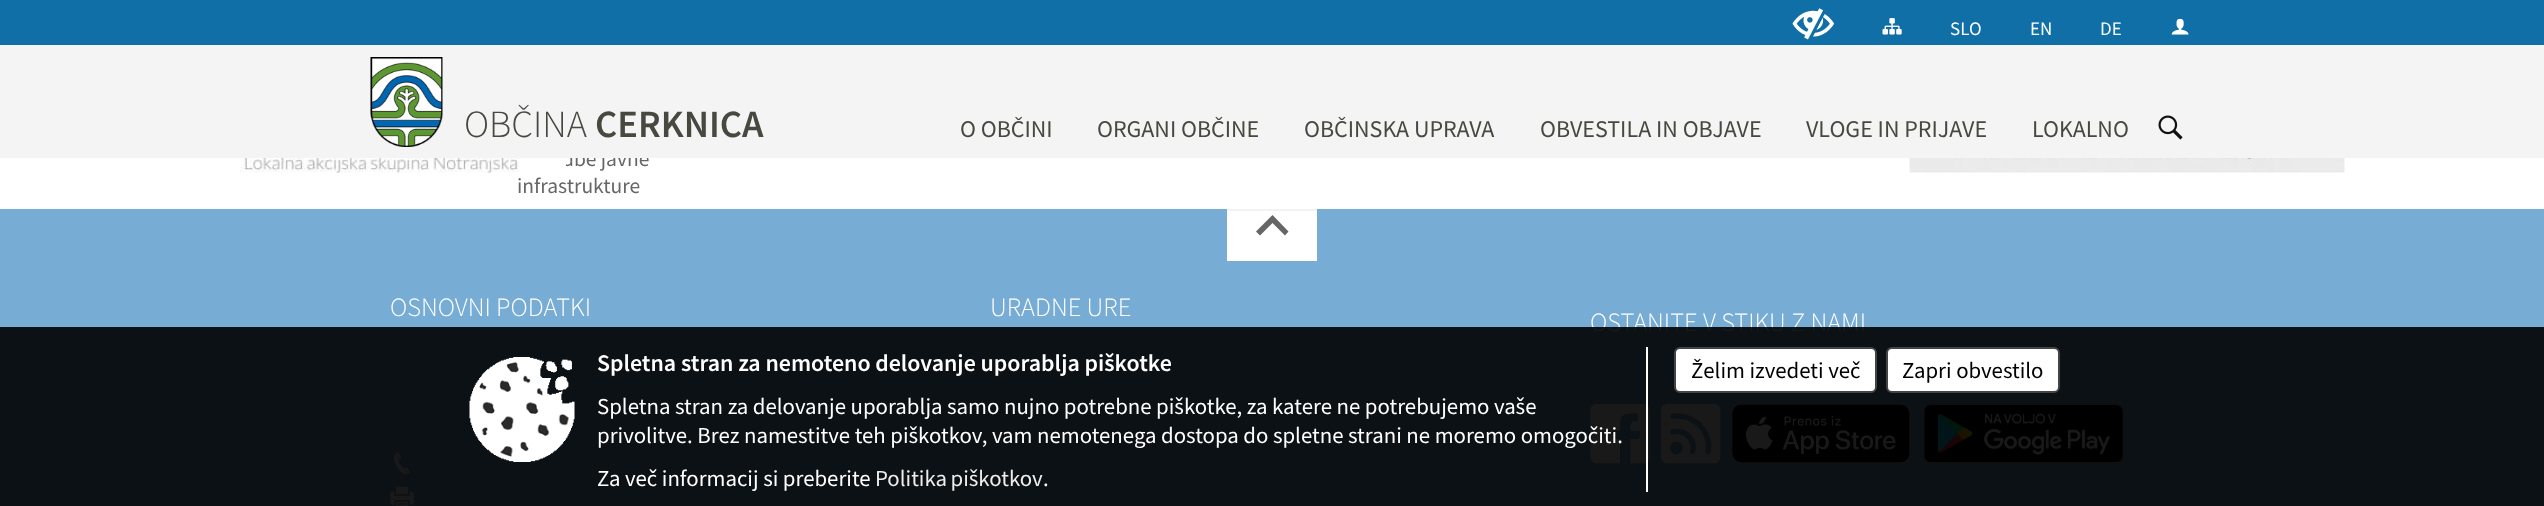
<svg xmlns="http://www.w3.org/2000/svg" width="2544" height="506" viewBox="0 0 2544 506">
  <rect width="100%" height="100%" fill="#fff"/>
  <path d="M0 0h2544v45H0z" fill="#106fa6"/>
  <image x="1792" y="8" width="43" height="32" href="img/1.png"/>
  <image x="1882" y="18" width="20" height="17" href="img/2.png"/>
  <image x="2171" y="18" width="18" height="17" href="img/3.png"/>
  <image x="213" y="158" width="338" height="15" href="img/6.png"/>
  <image x="1909" y="158" width="436" height="15" href="img/7.png"/>
  <path d="M0 209h2544v297H0z" fill="#77acd4"/>
  <path d="M1227 211h90v50H1227z" fill="#fff"/>
  <path d="M1227 209h90v2H1227z" fill="#f2f2f2"/>
  <path d="M1260 235.5L1256 231.5L1272.5 215L1288.5 231.5L1285 235.5L1272.5 223Z" fill="#666"/>
  <image x="394" y="452" width="16" height="23" href="img/8.png"/>
  <image x="390" y="486" width="24" height="20" href="img/9.png"/>
  <image x="1590" y="403" width="60" height="61" href="img/10.png"/>
  <image x="1660" y="403" width="61" height="61" href="img/11.png"/>
  <image x="1731" y="403" width="180" height="61" href="img/12.png"/>
  <image x="1923" y="403" width="201" height="61" href="img/13.png"/>
  <g font-family="Source Sans Pro" font-size="19" fill="#fff">
    <text x="1950" y="35">SLO</text>
    <text x="2030" y="35">EN</text>
    <text x="2100" y="35">DE</text>
  </g>
  <text x="562" y="166" font-family="Source Sans Pro" font-size="21.5" fill="#666">dbe javne</text>
  <path d="M0 45h2544v113H0z" fill="#f4f4f4"/>
  <text x="595" y="137" font-family="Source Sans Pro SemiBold" font-size="38.5" font-weight="600" fill="#474840">CERKNICA</text>
  <text x="464" y="137" font-family="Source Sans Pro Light" font-size="38.5" font-weight="300" fill="#474840">OBČINA</text>
  <image x="370" y="57" width="73" height="90" href="img/4.png"/>
  <image x="2158" y="115" width="25" height="25" href="img/5.png"/>
  <g font-family="Source Sans Pro" font-size="24" fill="#474840">
    <text x="2032" y="137">LOKALNO</text>
    <text x="1806" y="137">VLOGE IN PRIJAVE</text>
    <text x="1540" y="137">OBVESTILA IN OBJAVE</text>
    <text x="1304" y="137">OBČINSKA UPRAVA</text>
    <text x="1097" y="137">ORGANI OBČINE</text>
    <text x="960" y="137">O OBČINI</text>
  </g>
  <text x="517" y="193" font-family="Source Sans Pro" font-size="21.5" fill="#666">infrastrukture</text>
  <path d="M563 158h3v8H563z" fill="#fff"/>
  <g font-family="Source Sans Pro Light" font-size="26.4" font-weight="300" fill="#fff">
    <text x="390" y="316">OSNOVNI PODATKI</text>
    <text x="990" y="316">URADNE URE</text>
    <text x="1590" y="331">OSTANITE V STIKU Z NAMI</text>
  </g>
  <path d="M0 327h2544v179H0z" fill="#000000e6"/>
  <image x="469" y="357" width="106" height="105" href="img/14.png"/>
  <path d="M1646 347h2v145H1646z" fill="#fff"/>
  <text x="597" y="371" font-family="Source Sans Pro SemiBold" font-size="23.9" font-weight="600" fill="#fff">Spletna stran za nemoteno delovanje uporablja piškotke</text>
  <g font-family="Source Sans Pro" font-size="22.8" fill="#fff">
    <text x="597" y="414">Spletna stran za delovanje uporablja samo nujno potrebne piškotke, za katere ne potrebujemo vaše</text>
    <text x="597" y="443">privolitve. Brez namestitve teh piškotkov, vam nemotenega dostopa do spletne strani ne moremo omogočiti.</text>
    <text x="597" y="486">Za več informacij si preberite</text>
  </g>
  <text x="875" y="486" word-spacing="-1" font-family="Source Sans Pro" font-size="22.8" fill="#eee">Politika piškotkov</text>
  <text x="1043" y="486" font-family="Source Sans Pro" font-size="22.8" fill="#fff">.</text>
  <rect x="1675" y="348" width="201" height="44" rx="5" fill="#fff" stroke="#444" stroke-width="2"/>
  <text x="1691" y="378" font-family="Source Sans Pro" font-size="22.8" fill="#000">Želim izvedeti več</text>
  <rect x="1887" y="348" width="172" height="44" rx="5" fill="#fff" stroke="#444" stroke-width="2"/>
  <text x="1902" y="378" font-family="Source Sans Pro" font-size="22.8" fill="#000">Zapri obvestilo</text>
</svg>
